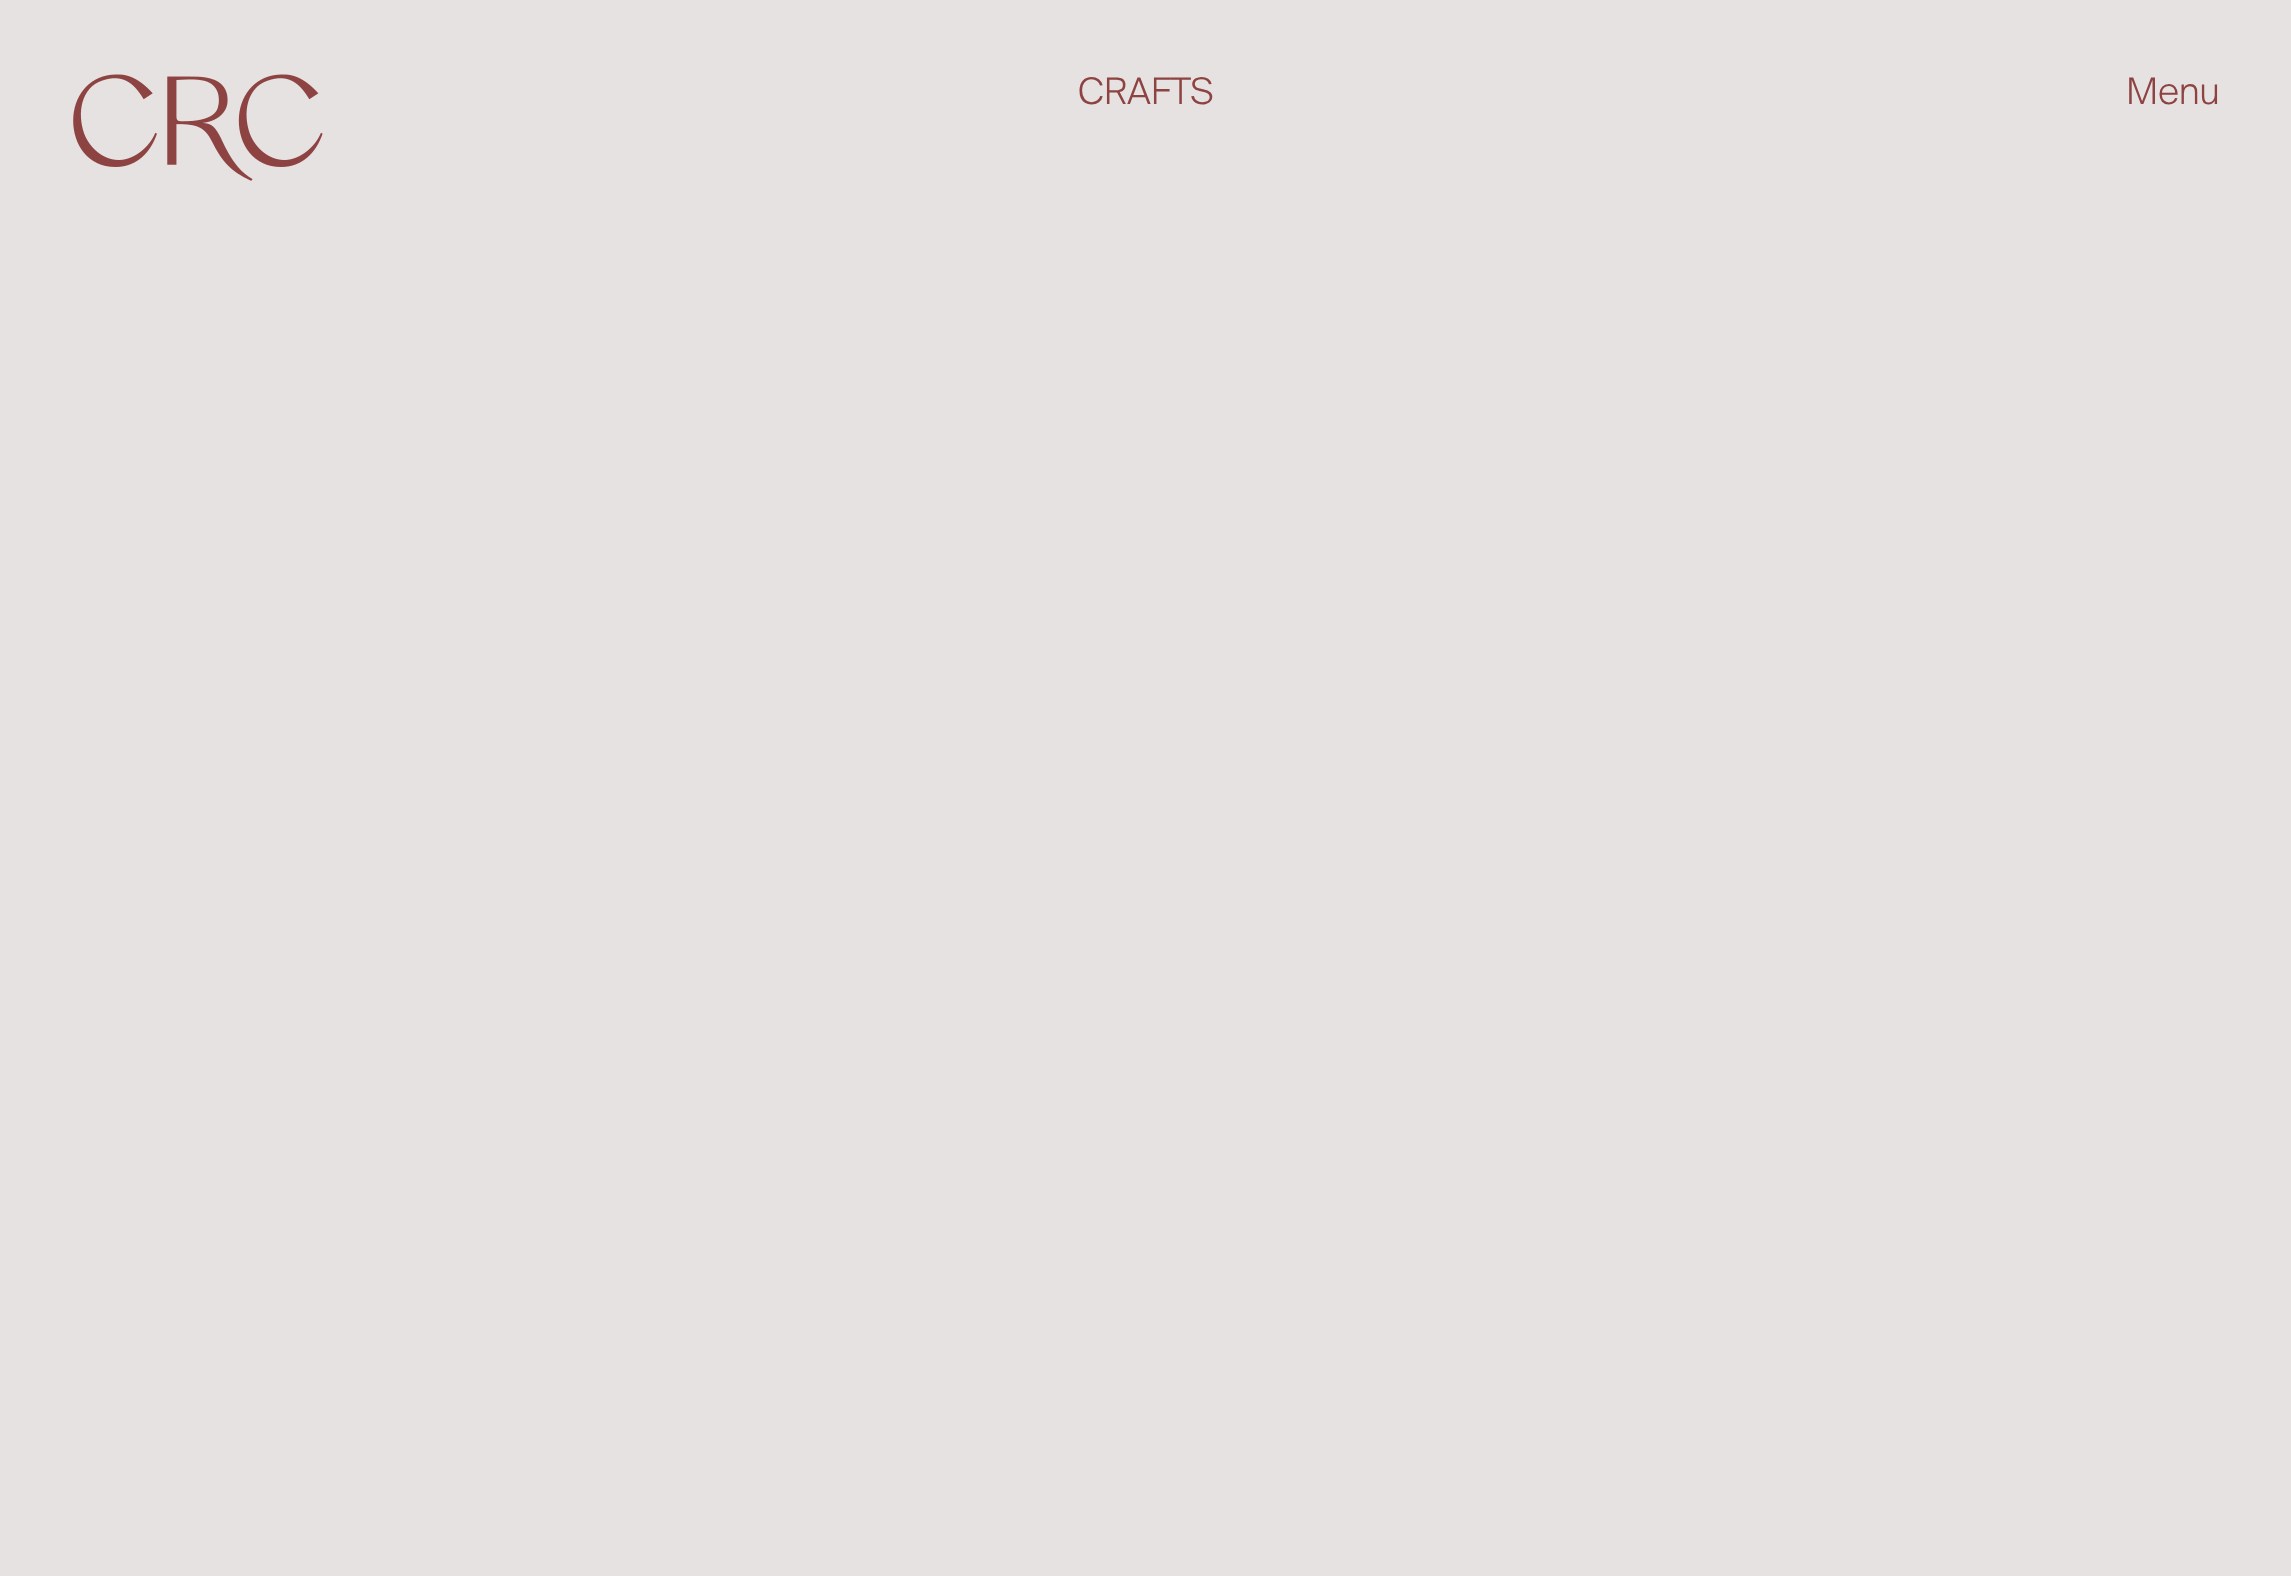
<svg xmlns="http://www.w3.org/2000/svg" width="2291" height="1576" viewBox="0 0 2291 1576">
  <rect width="100%" height="100%" fill="#e7e2e2"/>
  <image x="73" y="74" width="250" height="107" href="img/1.png"/>
  <g font-family="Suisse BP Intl" font-size="40" font-weight="300" fill="#8d4342">
    <text x="1078" y="104">CRAFTS</text>
    <text x="2126" y="104">Menu</text>
  </g>
</svg>
